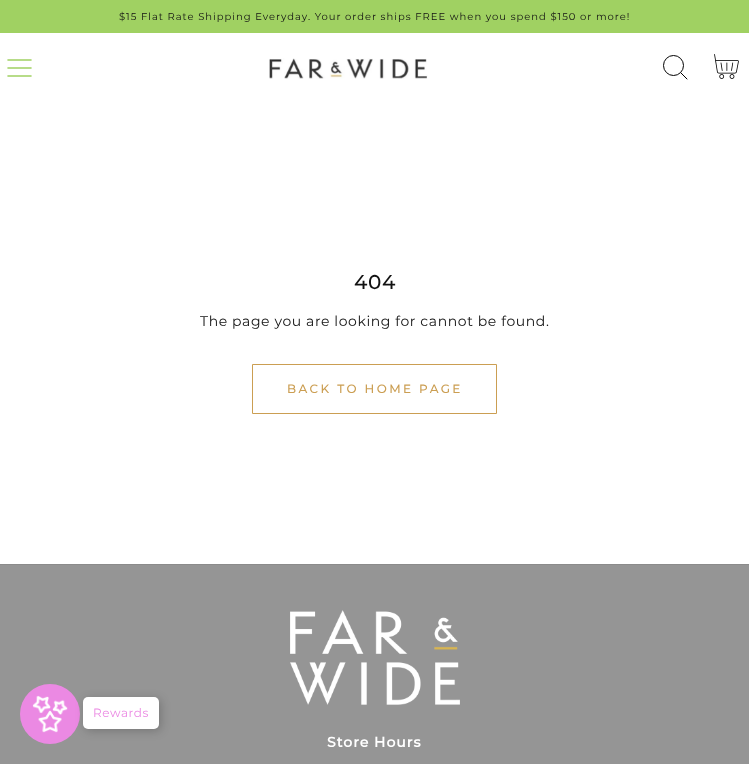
<svg xmlns="http://www.w3.org/2000/svg" width="749" height="764" viewBox="0 0 749 764">
  <rect width="100%" height="100%" fill="#fff"/>
  <path d="M0 0h749v33H0z" fill="#a0d162"/>
  <path d="M8 60H31M8 68H31M8 76H31" fill="none" stroke="#a0d162" stroke-width="1.6" stroke-linecap="round"/>
  <image x="269" y="58" width="159" height="21" href="img/1.png"/>
  <circle cx="673.5" cy="65.5" r="10" fill="none" stroke="#000"/>
  <path d="M681 73L687 79" fill="none" stroke="#000" stroke-linecap="round"/>
  <image x="714" y="54" width="25" height="25" href="img/2.png"/>
  <path d="M0 565h749v199H0z" fill="#959595"/>
  <circle cx="50" cy="714" r="30" fill="#eb89e3"/>
  <image x="32" y="695" width="36" height="38" href="img/3.png"/>
  <rect x="85" y="699" width="76" height="32" rx="5" fill="#00000033" filter="blur(5px)"/>
  <rect x="83" y="697" width="76" height="32" rx="5" fill="#fff"/>
  <path d="M252 364H497L496 365H253Z" fill="#cb9e52"/>
  <path d="M252 414V364L253 365V413Z" fill="#cb9e52"/>
  <path d="M497 364V414L496 413V365Z" fill="#cb9e52"/>
  <path d="M497 414H252L253 413H496Z" fill="#cb9e52"/>
  <path d="M0 564h749v1H0z" fill="#8b8b8b"/>
  <image x="290" y="610" width="170" height="95" href="img/4.png"/>
  <text x="119" y="20" font-family="Montserrat" font-size="10" letter-spacing="1" fill="#121212">$15 Flat Rate Shipping Everyday. Your order ships FREE when you spend $150 or more!</text>
  <text x="93" y="717" font-family="Montserrat" font-size="12" letter-spacing="0.6" fill="#eb89e3">Rewards</text>
  <text x="354" y="289" font-family="Montserrat" font-size="20" font-weight="500" letter-spacing="0.6" fill="#121212">404</text>
  <text x="200" y="326" font-family="Montserrat" font-size="14" letter-spacing="0.6" fill="#121212">The page you are looking for cannot be found.</text>
  <text x="287" y="393" font-family="Montserrat" font-size="12" font-weight="500" letter-spacing="2.4" fill="#cb9e52">BACK TO HOME PAGE</text>
  <text x="327" y="747" font-family="Montserrat" font-size="14" font-weight="bold" letter-spacing="1" fill="#fff">Store Hours</text>
</svg>
